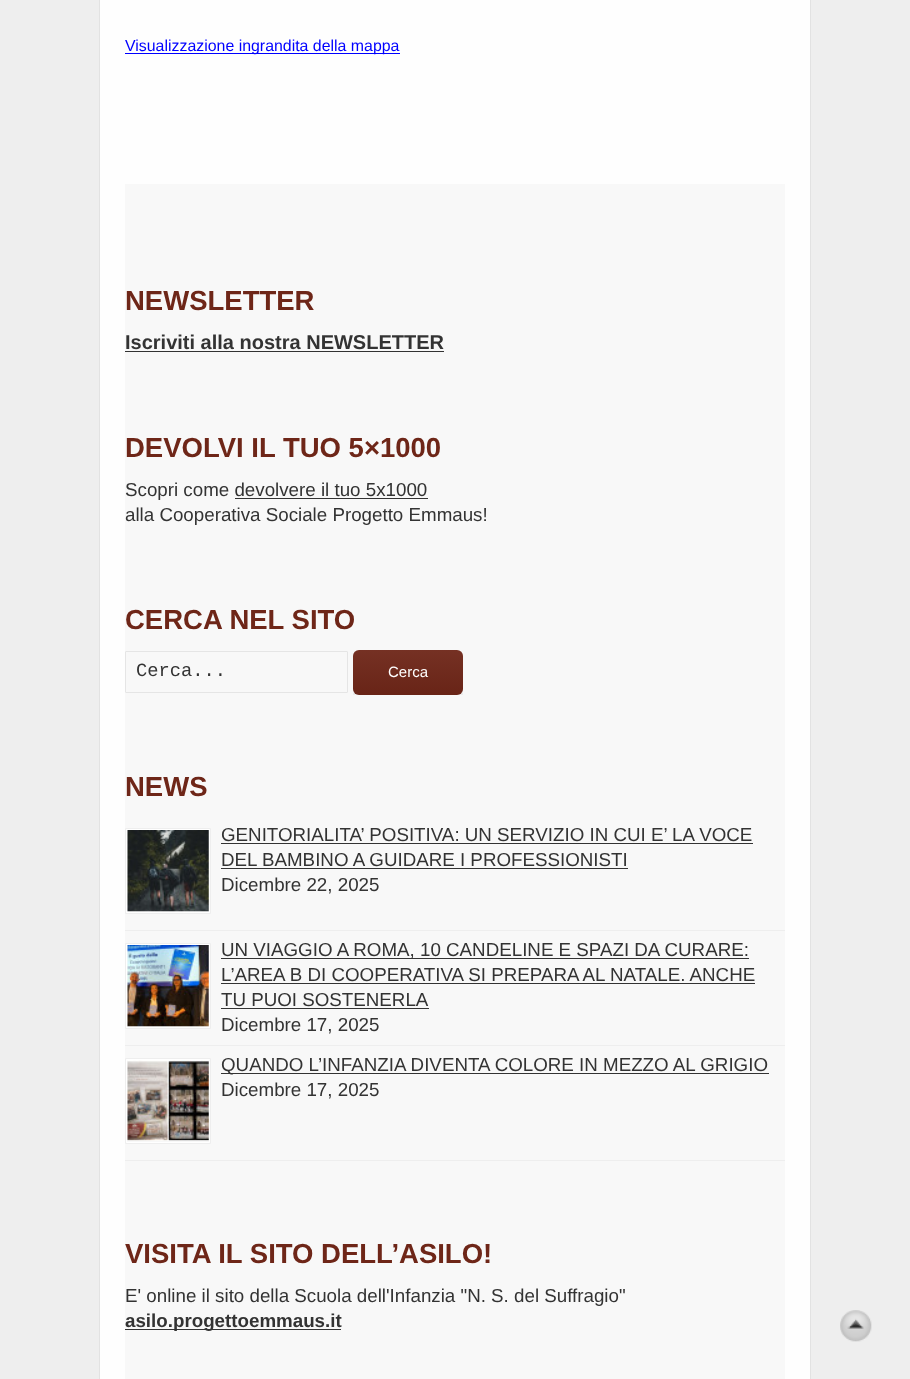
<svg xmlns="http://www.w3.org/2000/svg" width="910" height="1379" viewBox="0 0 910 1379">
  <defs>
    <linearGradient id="g1" gradientUnits="userSpaceOnUse" x1="408" y1="650" x2="408" y2="695"><stop offset="0" stop-color="#fff" stop-opacity="0.05"/><stop offset="1" stop-color="#000" stop-opacity="0.05"/></linearGradient>
  </defs>
  <rect width="100%" height="100%" fill="#eee"/>
  <path d="M99.5 -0.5h711v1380H99.5z" fill="none" stroke="#e2e2e2"/>
  <path d="M100 0h710v1379H100z" fill="#fefefe"/>
  <path d="M125 53h275v1H125z" fill="#00f"/>
  <path d="M125 184h660v1195H125z" fill="#f8f8f8"/>
  <path d="M125 351h319v1H125z" fill="#333"/>
  <path d="M235 498h193v1H235z" fill="#333"/>
  <rect x="125.5" y="651.5" width="222" height="41" rx="0.5" fill="none" stroke="#e5e5e5"/>
  <rect x="353" y="650" width="110" height="45" rx="6" fill="#6e2618"/>
  <path d="M353 650h110v45H353z" fill="url(#g1)"/>
  <path d="M125 930h660v1H125z" fill="#eee"/>
  <path d="M125.5 828.5h85v85H125.5z" fill="none" stroke="#eee"/>
  <path d="M126.5 829.5h83v83H126.5z" fill="none" stroke="#fff"/>
  <image x="127" y="830" width="82" height="82" href="img/1.png"/>
  <path d="M221 843h532v1H221z" fill="#333"/>
  <path d="M221 868h407v1H221z" fill="#333"/>
  <path d="M125 1045h660v1H125z" fill="#eee"/>
  <path d="M125.5 943.5h85v85H125.5z" fill="none" stroke="#eee"/>
  <path d="M126.5 944.5h83v83H126.5z" fill="none" stroke="#fff"/>
  <image x="127" y="945" width="82" height="82" href="img/2.png"/>
  <path d="M221 958h528v1H221z" fill="#333"/>
  <path d="M221 983h534v1H221z" fill="#333"/>
  <path d="M221 1008h208v1H221z" fill="#333"/>
  <path d="M125 1160h660v1H125z" fill="#eee"/>
  <path d="M125.5 1058.5h85v85H125.5z" fill="none" stroke="#eee"/>
  <path d="M126.5 1059.5h83v83H126.5z" fill="none" stroke="#fff"/>
  <image x="127" y="1060" width="82" height="81" href="img/3.png"/>
  <path d="M221 1073h548v1H221z" fill="#333"/>
  <path d="M125 1329h216v1H125z" fill="#333"/>
  <image x="840" y="1310" width="32" height="32" href="img/4.png"/>
  <text x="125" y="51" font-family="Liberation Sans" font-size="15.9" fill="#00f">Visualizzazione ingrandita della mappa</text>
  <text x="125" y="310" font-family="Liberation Sans" font-size="27.5" font-weight="bold" fill="#6e2618">NEWSLETTER</text>
  <text x="125" y="349" font-family="Liberation Sans" font-size="20" font-weight="bold" fill="#333">Iscriviti alla nostra NEWSLETTER</text>
  <text x="125" y="457" font-family="Liberation Sans" font-size="27.5" font-weight="bold" fill="#6e2618">DEVOLVI IL TUO 5×1000</text>
  <g font-family="Liberation Sans" font-size="18.75" fill="#333">
    <text x="125" y="496">Scopri come devolvere il tuo 5x1000</text>
    <text x="125" y="521">alla Cooperativa Sociale Progetto Emmaus!</text>
  </g>
  <text x="125" y="629" font-family="Liberation Sans" font-size="27.5" font-weight="bold" fill="#6e2618">CERCA NEL SITO</text>
  <text x="136" y="676" font-family="Liberation Mono" font-size="18.75" fill="#333">Cerca...</text>
  <text x="388" y="677" font-family="Liberation Sans" font-size="15" fill="#fff">Cerca</text>
  <text x="125" y="796" font-family="Liberation Sans" font-size="27.5" font-weight="bold" fill="#6e2618">NEWS</text>
  <g font-family="Liberation Sans" font-size="18.75" fill="#333">
    <text x="221" y="841">GENITORIALITA’ POSITIVA: UN SERVIZIO IN CUI E’ LA VOCE</text>
    <text x="221" y="866">DEL BAMBINO A GUIDARE I PROFESSIONISTI</text>
    <text x="221" y="891">Dicembre 22, 2025</text>
    <text x="221" y="956">UN VIAGGIO A ROMA, 10 CANDELINE E SPAZI DA CURARE:</text>
    <text x="221" y="981">L’AREA B DI COOPERATIVA SI PREPARA AL NATALE. ANCHE</text>
    <text x="221" y="1006">TU PUOI SOSTENERLA</text>
    <text x="221" y="1031">Dicembre 17, 2025</text>
    <text x="221" y="1071">QUANDO L’INFANZIA DIVENTA COLORE IN MEZZO AL GRIGIO</text>
    <text x="221" y="1096">Dicembre 17, 2025</text>
  </g>
  <text x="125" y="1263" font-family="Liberation Sans" font-size="27.5" font-weight="bold" fill="#6e2618">VISITA IL SITO DELL’ASILO!</text>
  <text x="125" y="1302" font-family="Liberation Sans" font-size="18.75" fill="#333">E' online il sito della Scuola dell'Infanzia "N. S. del Suffragio"</text>
  <text x="125" y="1327" font-family="Liberation Sans" font-size="18.75" font-weight="bold" fill="#333">asilo.progettoemmaus.it</text>
</svg>
